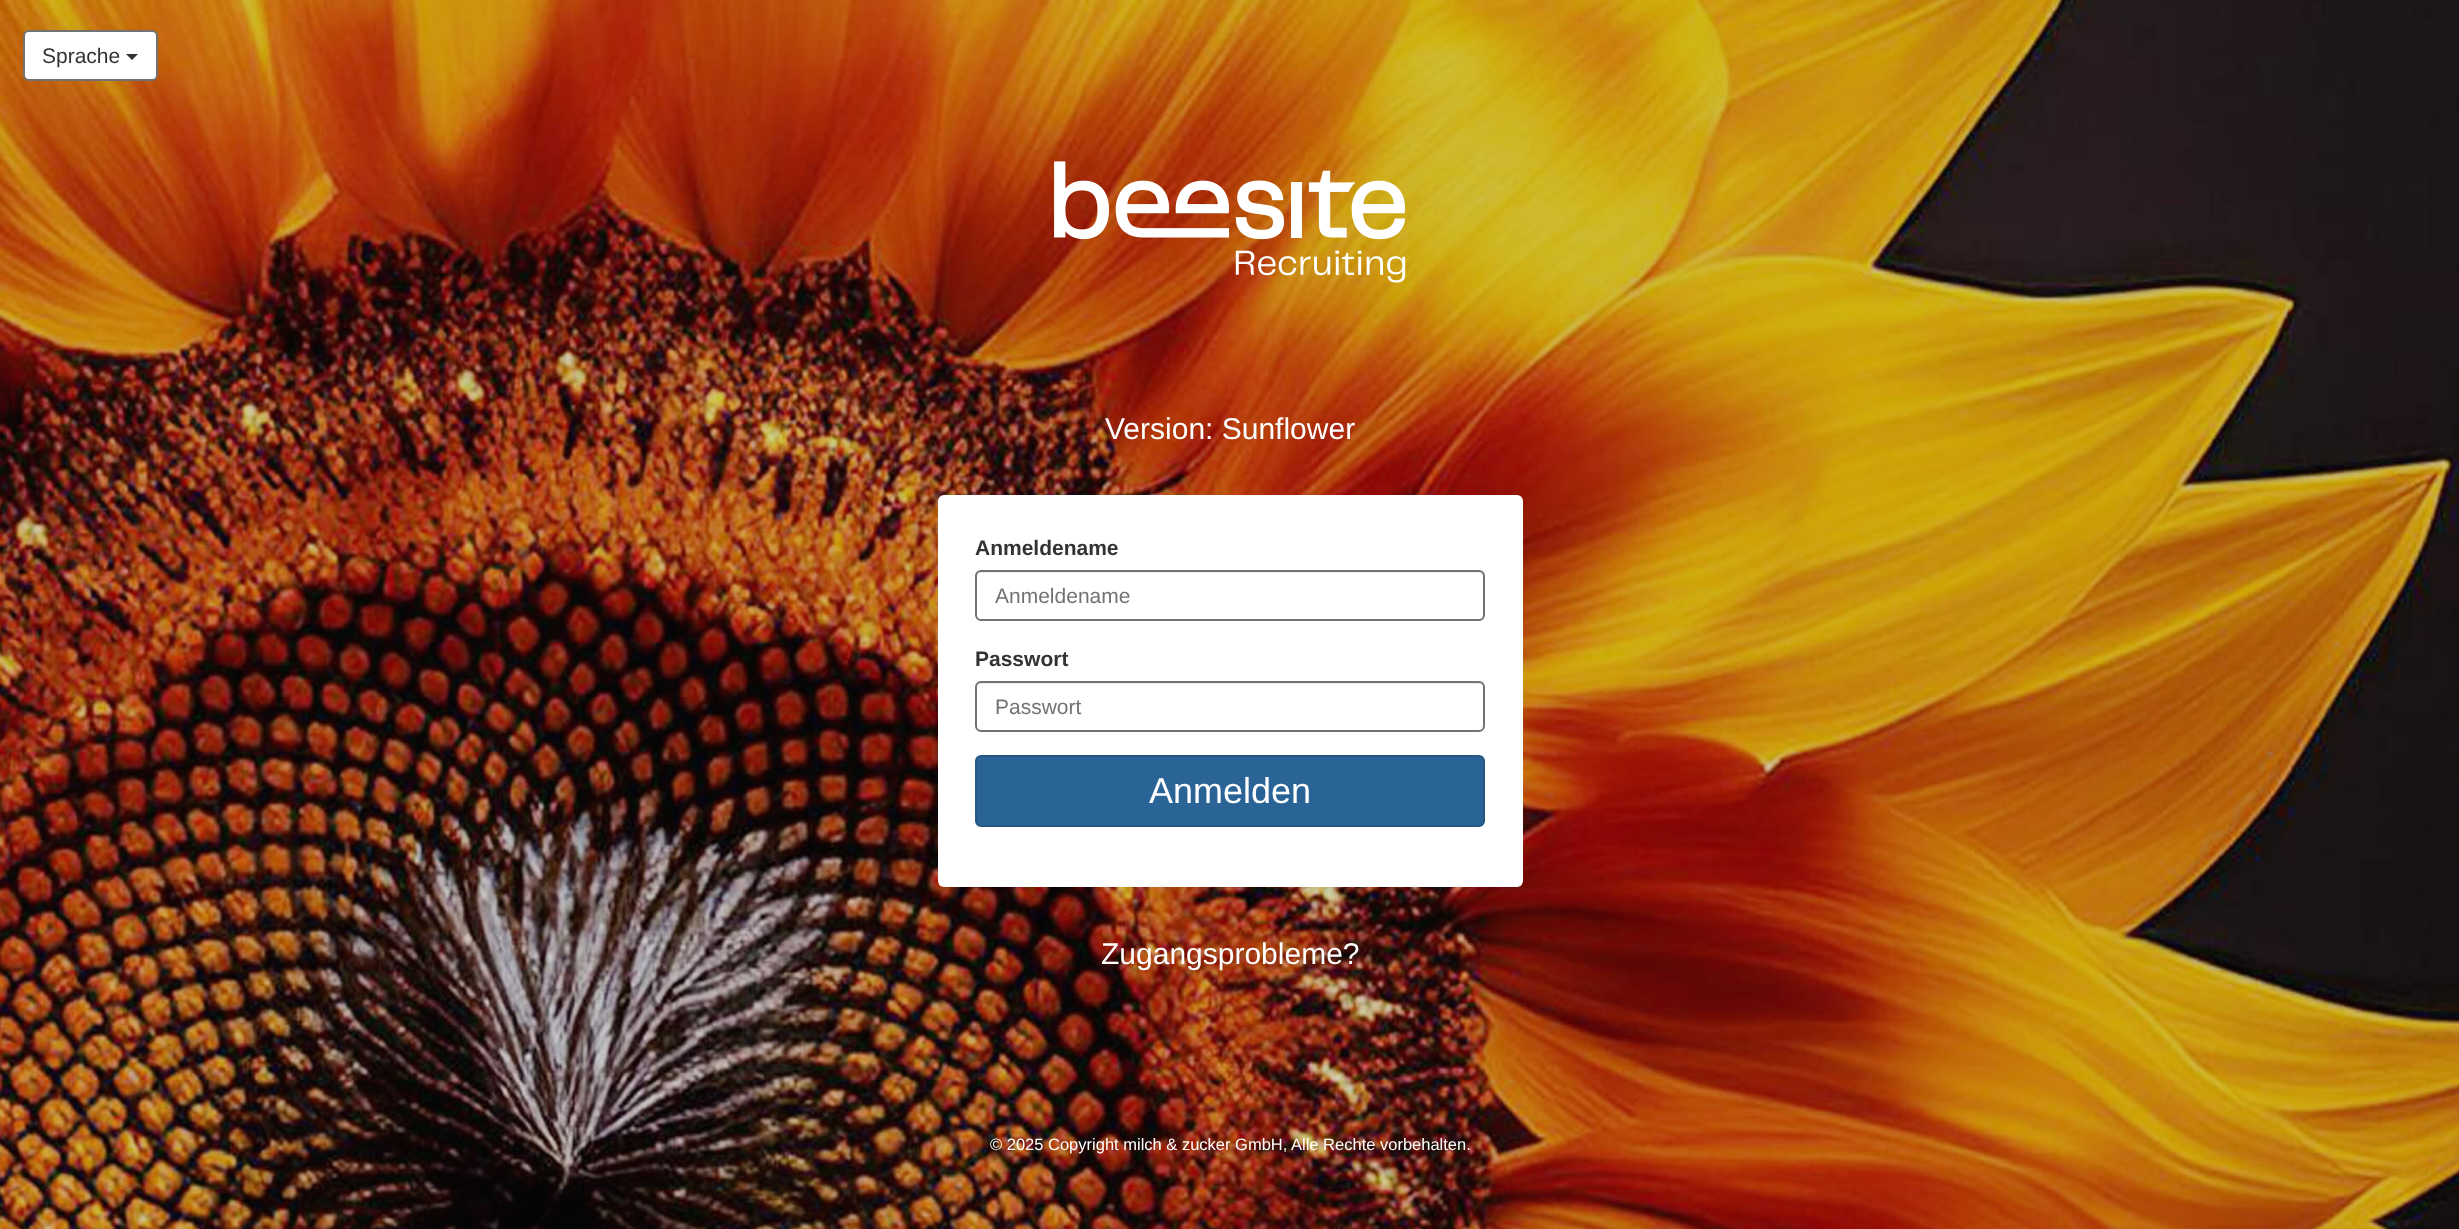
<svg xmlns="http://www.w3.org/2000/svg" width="2459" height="1229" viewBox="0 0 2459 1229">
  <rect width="100%" height="100%" fill="#fff"/>
  <image x="0" y="0" width="2459" height="1229" href="img/1.png"/>
  <rect x="24" y="31" width="133" height="49" rx="5" fill="#fff" stroke="#727272" stroke-width="2"/>
  <path d="M126 54H138L132 60Z" fill="#333"/>
  <image x="1054" y="161" width="352" height="122" href="img/2.png"/>
  <rect x="938" y="495" width="585" height="392" rx="6" fill="#fff"/>
  <path d="M981 573H1479C1481 573 1484 575 1484 578V577C1484 574 1482 572 1479 572H982C980 572 979 573 978 574Z" fill="#ececec"/>
  <rect x="976" y="571" width="508" height="49" rx="5" fill="none" stroke="#727272" stroke-width="2"/>
  <path d="M981 684H1479C1481 684 1484 686 1484 688C1484 685 1482 683 1479 683H982C980 683 979 684 978 685Z" fill="#ececec"/>
  <rect x="976" y="682" width="508" height="49" rx="5" fill="none" stroke="#727272" stroke-width="2"/>
  <rect x="976" y="756" width="508" height="70" rx="5" fill="#2a6496" stroke="#245782" stroke-width="2"/>
  <text x="42" y="63" font-family="Liberation Sans" font-size="21" fill="#333">Sprache</text>
  <text x="1105" y="439" font-family="Liberation Sans" font-size="30" fill="#fff">Version: Sunflower</text>
  <text x="975" y="555" font-family="Liberation Sans" font-size="21" font-weight="bold" fill="#333">Anmeldename</text>
  <text x="995" y="603" font-family="Liberation Sans" font-size="21" fill="#727272">Anmeldename</text>
  <text x="975" y="666" font-family="Liberation Sans" font-size="21" font-weight="bold" fill="#333">Passwort</text>
  <text x="995" y="714" font-family="Liberation Sans" font-size="21" fill="#727272">Passwort</text>
  <text x="1149" y="803" font-family="Liberation Sans" font-size="36" fill="#fff">Anmelden</text>
  <text x="1101" y="964" font-family="Liberation Sans" font-size="30" fill="#fff">Zugangsprobleme?</text>
  <text x="990" y="1150" font-family="Liberation Sans" font-size="16.5" fill="#fff">© 2025 Copyright milch &amp; zucker GmbH, Alle Rechte vorbehalten.</text>
</svg>
